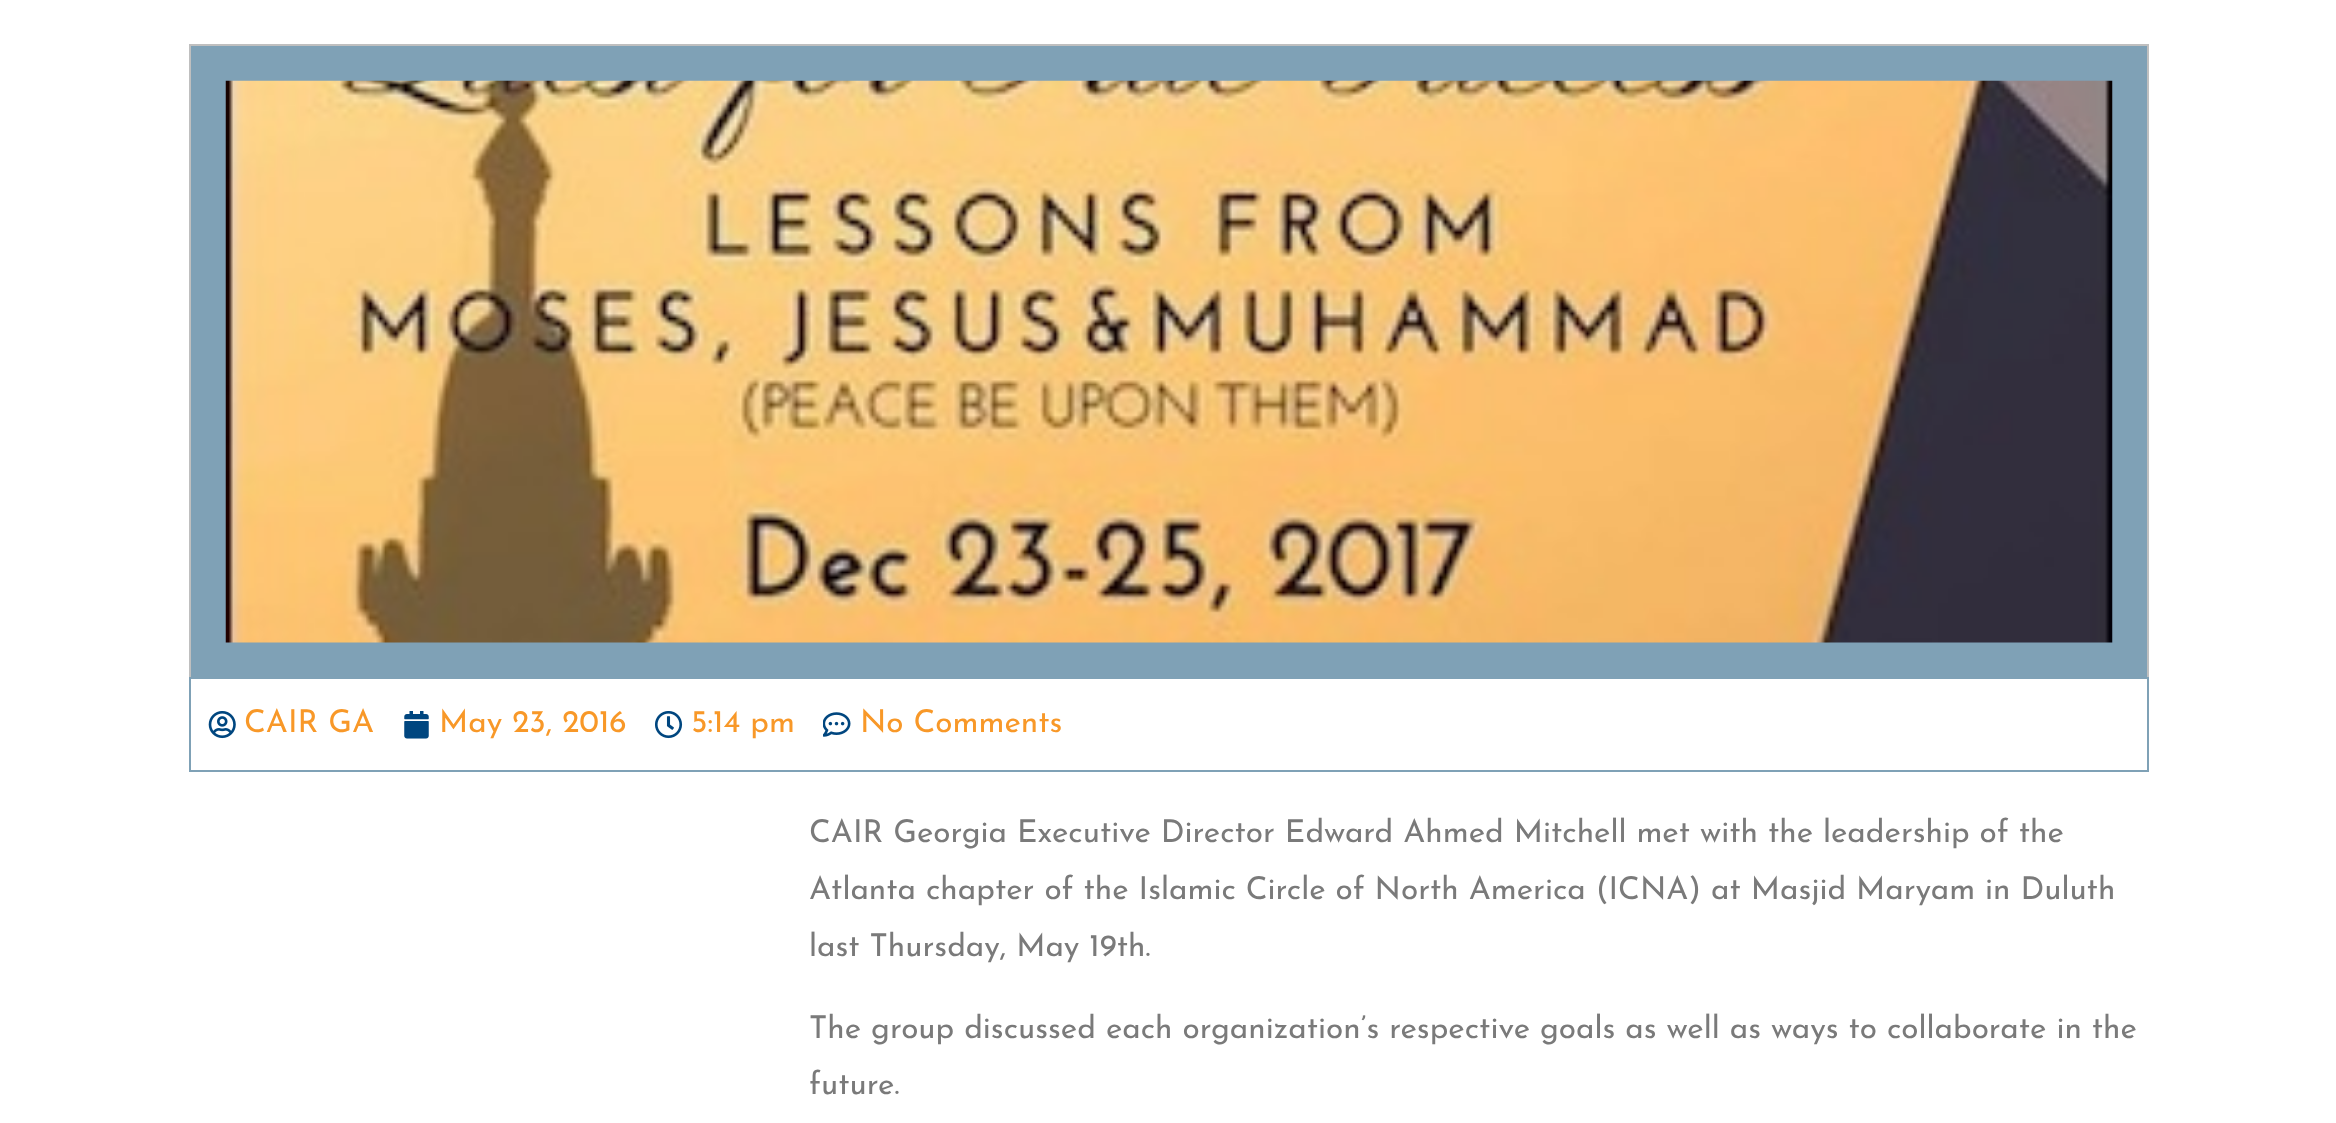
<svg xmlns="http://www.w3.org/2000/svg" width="2336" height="1123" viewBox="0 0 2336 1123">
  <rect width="100%" height="100%" fill="#fff"/>
  <path d="M190 45h1958v633H190z" fill="#7fa1b6" stroke="#bfbfbf" stroke-width="2"/>
  <image x="225" y="80" width="1888" height="563" href="img/1.png"/>
  <path d="M190 678h1958v93H190z" fill="none" stroke="#7fa1b6" stroke-width="2"/>
  <image x="208" y="711" width="28" height="28" href="img/2.png"/>
  <image x="404" y="711" width="25" height="28" href="img/3.png"/>
  <image x="655" y="711" width="28" height="28" href="img/4.png"/>
  <image x="823" y="712" width="28" height="25" href="img/5.png"/>
  <g font-family="Josefin Sans" font-size="31.5" fill="#f89828">
    <text x="244" y="732">CAIR GA</text>
    <text x="439" y="732">May 23, 2016</text>
    <text x="691" y="732">5:14 pm</text>
    <text x="860" y="732">No Comments</text>
  </g>
  <g font-family="Josefin Sans" font-size="31.5" fill="#7a7a7a">
    <text x="809" y="842">CAIR Georgia Executive Director Edward Ahmed Mitchell met with the leadership of the</text>
    <text x="809" y="899">Atlanta chapter of the Islamic Circle of North America (ICNA) at Masjid Maryam in Duluth</text>
    <text x="809" y="956">last Thursday, May 19th.</text>
    <text x="809" y="1038">The group discussed each organization’s respective goals as well as ways to collaborate in the</text>
    <text x="809" y="1094">future.</text>
  </g>
</svg>
